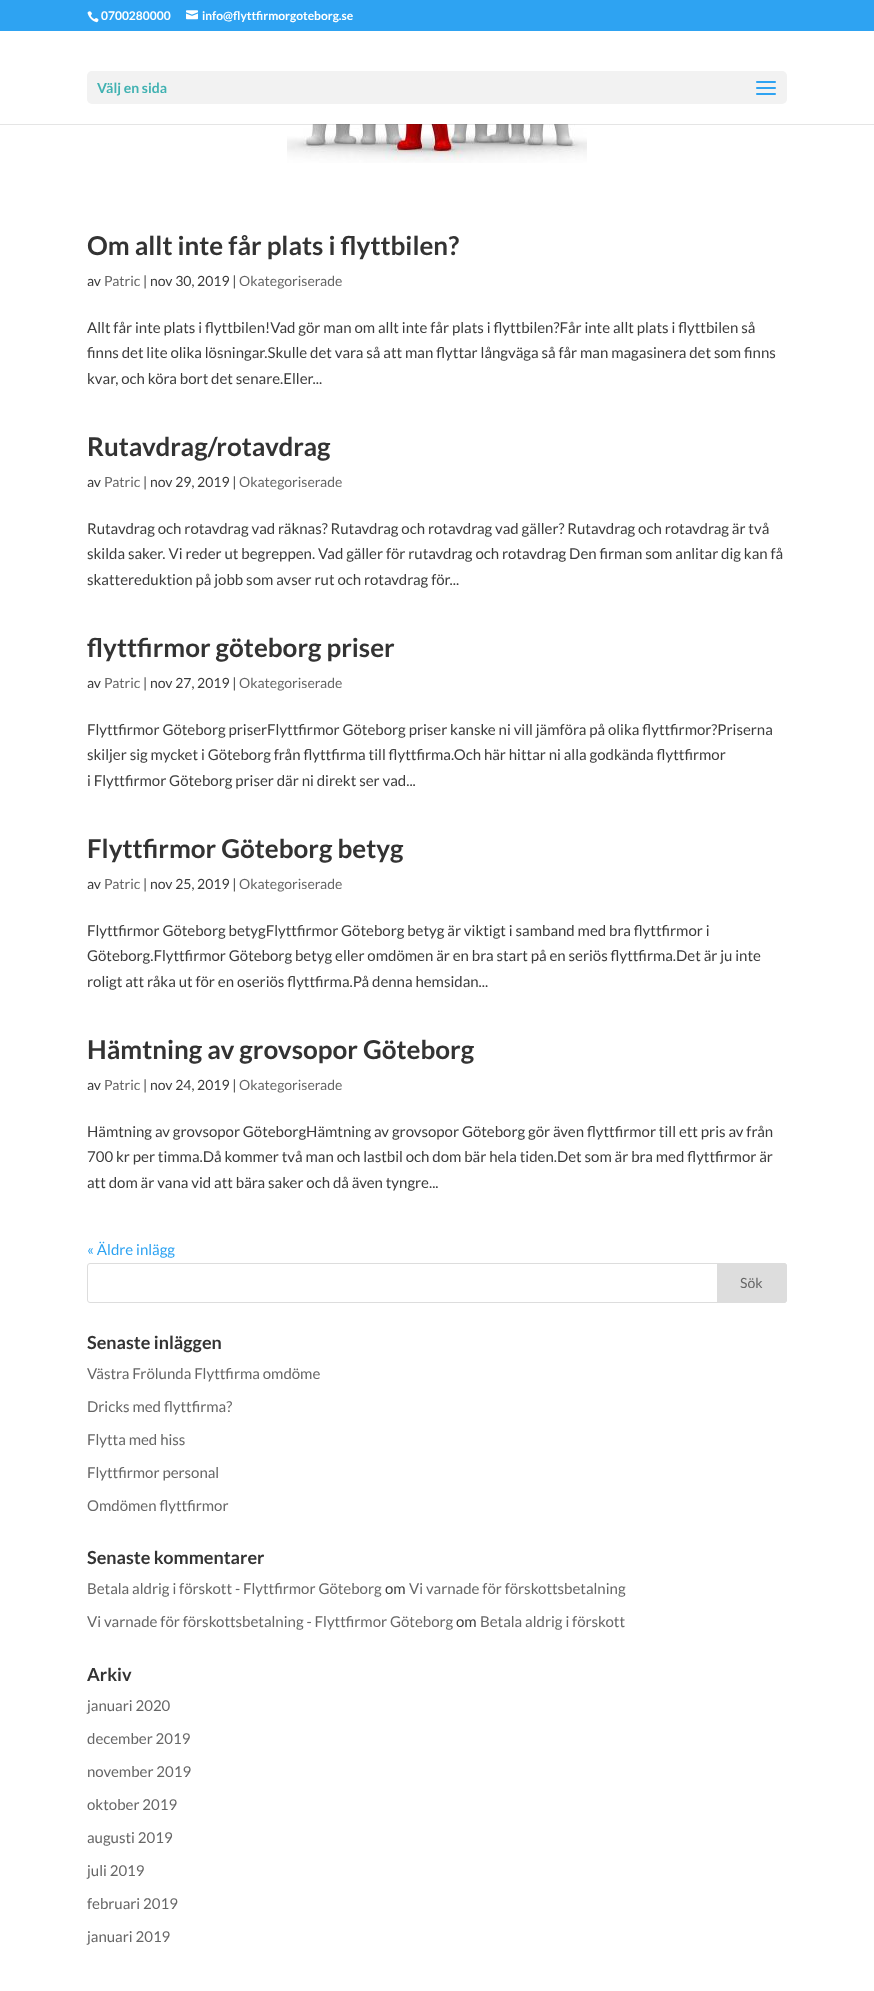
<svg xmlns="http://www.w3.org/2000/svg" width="874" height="1991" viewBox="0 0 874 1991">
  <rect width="100%" height="100%" fill="#fff"/>
  <image x="287" y="124" width="300" height="39" href="img/1.png"/>
  <path d="M0 0h874v31H0z" fill="#2ea3f2"/>
  <image x="87" y="11" width="12" height="12" href="img/2.png"/>
  <image x="186" y="10" width="12" height="10" href="img/3.png"/>
  <path d="M0 124h874v1H0z" fill="#0000001a"/>
  <rect x="87" y="71" width="700" height="33" rx="5" fill="#f2f2f2"/>
  <image x="756" y="81" width="20" height="14" href="img/4.png"/>
  <rect x="87.5" y="1263.5" width="699" height="39" rx="2.5" fill="none" stroke="#ddd"/>
  <path d="M717.5 1263.5H784C785.5 1263.5 786.5 1264.5 786.5 1266V1300C786.5 1301.5 785.5 1302.5 784 1302.5H717.5Z" fill="#ddd" stroke="#ddd"/>
  <g font-family="Lato" font-size="12" font-weight="bold" fill="#fff">
    <text x="101" y="20">0700280000</text>
    <text x="202" y="20">info@flyttfirmorgoteborg.se</text>
  </g>
  <text x="97" y="93" font-family="Lato" font-size="14" font-weight="bold" fill="#42b2b2">Välj en sida</text>
  <text x="87" y="255" font-family="Lato" font-size="26" font-weight="bold" fill="#333">Om allt inte får plats i flyttbilen?</text>
  <text x="87" y="286" font-family="Lato" font-size="14" fill="#3c3c3c">av</text>
  <text x="104" y="286" font-family="Lato" font-size="14" fill="#666">Patric</text>
  <text x="143" y="286" font-family="Lato" font-size="14" fill="#3c3c3c">| nov 30, 2019 |</text>
  <text x="239" y="286" font-family="Lato" font-size="14" fill="#666">Okategoriserade</text>
  <g font-family="Lato" font-size="15" fill="#3c3c3c">
    <text x="87" y="333">Allt får inte plats i flyttbilen!Vad gör man om allt inte får plats i flyttbilen?Får inte allt plats i flyttbilen så</text>
    <text x="87" y="358">finns det lite olika lösningar.Skulle det vara så att man flyttar långväga så får man magasinera det som finns</text>
    <text x="87" y="384">kvar, och köra bort det senare.Eller...</text>
  </g>
  <text x="87" y="456" font-family="Lato" font-size="26" font-weight="bold" fill="#333">Rutavdrag/rotavdrag</text>
  <text x="87" y="487" font-family="Lato" font-size="14" fill="#3c3c3c">av</text>
  <text x="104" y="487" font-family="Lato" font-size="14" fill="#666">Patric</text>
  <text x="143" y="487" font-family="Lato" font-size="14" fill="#3c3c3c">| nov 29, 2019 |</text>
  <text x="239" y="487" font-family="Lato" font-size="14" fill="#666">Okategoriserade</text>
  <g font-family="Lato" font-size="15" fill="#3c3c3c">
    <text x="87" y="534">Rutavdrag och rotavdrag vad räknas? Rutavdrag och rotavdrag vad gäller? Rutavdrag och rotavdrag är två</text>
    <text x="87" y="559">skilda saker. Vi reder ut begreppen. Vad gäller för rutavdrag och rotavdrag Den firman som anlitar dig kan få</text>
    <text x="87" y="585">skattereduktion på jobb som avser rut och rotavdrag för...</text>
  </g>
  <text x="87" y="657" font-family="Lato" font-size="26" font-weight="bold" fill="#333">flyttfirmor göteborg priser</text>
  <text x="87" y="688" font-family="Lato" font-size="14" fill="#3c3c3c">av</text>
  <text x="104" y="688" font-family="Lato" font-size="14" fill="#666">Patric</text>
  <text x="143" y="688" font-family="Lato" font-size="14" fill="#3c3c3c">| nov 27, 2019 |</text>
  <text x="239" y="688" font-family="Lato" font-size="14" fill="#666">Okategoriserade</text>
  <g font-family="Lato" font-size="15" fill="#3c3c3c">
    <text x="87" y="735">Flyttfirmor Göteborg priserFlyttfirmor Göteborg priser kanske ni vill jämföra på olika flyttfirmor?Priserna</text>
    <text x="87" y="760">skiljer sig mycket i Göteborg från flyttfirma till flyttfirma.Och här hittar ni alla godkända flyttfirmor</text>
    <text x="87" y="786">i Flyttfirmor Göteborg priser där ni direkt ser vad...</text>
  </g>
  <text x="87" y="858" font-family="Lato" font-size="26" font-weight="bold" fill="#333">Flyttfirmor Göteborg betyg</text>
  <text x="87" y="889" font-family="Lato" font-size="14" fill="#3c3c3c">av</text>
  <text x="104" y="889" font-family="Lato" font-size="14" fill="#666">Patric</text>
  <text x="143" y="889" font-family="Lato" font-size="14" fill="#3c3c3c">| nov 25, 2019 |</text>
  <text x="239" y="889" font-family="Lato" font-size="14" fill="#666">Okategoriserade</text>
  <g font-family="Lato" font-size="15" fill="#3c3c3c">
    <text x="87" y="936">Flyttfirmor Göteborg betygFlyttfirmor Göteborg betyg är viktigt i samband med bra flyttfirmor i</text>
    <text x="87" y="961">Göteborg.Flyttfirmor Göteborg betyg eller omdömen är en bra start på en seriös flyttfirma.Det är ju inte</text>
    <text x="87" y="987">roligt att råka ut för en oseriös flyttfirma.På denna hemsidan...</text>
  </g>
  <text x="87" y="1059" font-family="Lato" font-size="26" font-weight="bold" fill="#333">Hämtning av grovsopor Göteborg</text>
  <text x="87" y="1090" font-family="Lato" font-size="14" fill="#3c3c3c">av</text>
  <text x="104" y="1090" font-family="Lato" font-size="14" fill="#666">Patric</text>
  <text x="143" y="1090" font-family="Lato" font-size="14" fill="#3c3c3c">| nov 24, 2019 |</text>
  <text x="239" y="1090" font-family="Lato" font-size="14" fill="#666">Okategoriserade</text>
  <g font-family="Lato" font-size="15" fill="#3c3c3c">
    <text x="87" y="1137">Hämtning av grovsopor GöteborgHämtning av grovsopor Göteborg gör även flyttfirmor till ett pris av från</text>
    <text x="87" y="1162">700 kr per timma.Då kommer två man och lastbil och dom bär hela tiden.Det som är bra med flyttfirmor är</text>
    <text x="87" y="1188">att dom är vana vid att bära saker och då även tyngre...</text>
  </g>
  <text x="87" y="1255" font-family="Lato" font-size="15" fill="#2ea3f2">« Äldre inlägg</text>
  <text x="740" y="1288" font-family="Lato" font-size="14" fill="#666">Sök</text>
  <text x="87" y="1349" font-family="Lato" font-size="18" font-weight="bold" fill="#333">Senaste inläggen</text>
  <g font-family="Lato" font-size="15" fill="#666">
    <text x="87" y="1379">Västra Frölunda Flyttfirma omdöme</text>
    <text x="87" y="1412">Dricks med flyttfirma?</text>
    <text x="87" y="1445">Flytta med hiss</text>
    <text x="87" y="1478">Flyttfirmor personal</text>
    <text x="87" y="1511">Omdömen flyttfirmor</text>
  </g>
  <text x="87" y="1564" font-family="Lato" font-size="18" font-weight="bold" fill="#333">Senaste kommentarer</text>
  <text x="87" y="1594" font-family="Lato" font-size="15" fill="#666">Betala aldrig i förskott - Flyttfirmor Göteborg</text>
  <text x="385" y="1594" font-family="Lato" font-size="15" fill="#3c3c3c">om</text>
  <g font-family="Lato" font-size="15" fill="#666">
    <text x="409" y="1594">Vi varnade för förskottsbetalning</text>
    <text x="87" y="1627">Vi varnade för förskottsbetalning - Flyttfirmor Göteborg</text>
  </g>
  <text x="456" y="1627" font-family="Lato" font-size="15" fill="#3c3c3c">om</text>
  <text x="480" y="1627" font-family="Lato" font-size="15" fill="#666">Betala aldrig i förskott</text>
  <text x="87" y="1681" font-family="Lato" font-size="18" font-weight="bold" fill="#333">Arkiv</text>
  <g font-family="Lato" font-size="15" fill="#666">
    <text x="87" y="1711">januari 2020</text>
    <text x="87" y="1744">december 2019</text>
    <text x="87" y="1777">november 2019</text>
    <text x="87" y="1810">oktober 2019</text>
    <text x="87" y="1843">augusti 2019</text>
    <text x="87" y="1876">juli 2019</text>
    <text x="87" y="1909">februari 2019</text>
    <text x="87" y="1942">januari 2019</text>
  </g>
</svg>
